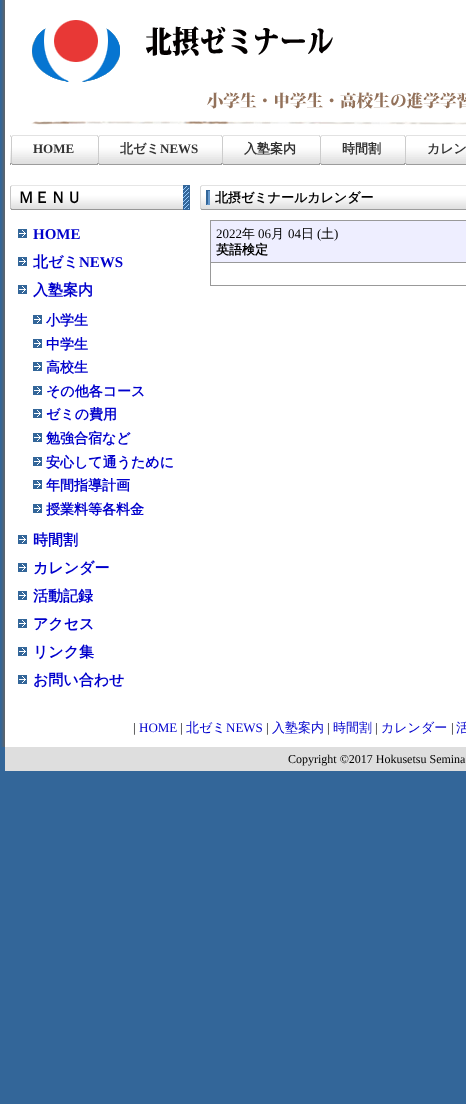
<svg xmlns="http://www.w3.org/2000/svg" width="466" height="1104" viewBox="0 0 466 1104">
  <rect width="100%" height="100%" fill="#369"/>
  <image x="1" y="0" width="465" height="747" href="img/1.png"/>
  <image x="32" y="20" width="88" height="62" href="img/2.png"/>
  <image x="146" y="26" width="187" height="30" href="img/3.png"/>
  <image x="207" y="92" width="259" height="17" href="img/4.png"/>
  <image x="31" y="121" width="435" height="6" href="img/5.png"/>
  <image x="13" y="135" width="453" height="30" href="img/6.png"/>
  <image x="10" y="135" width="3" height="30" href="img/7.png"/>
  <image x="97" y="135" width="3" height="30" href="img/7.png"/>
  <image x="221" y="135" width="3" height="30" href="img/7.png"/>
  <image x="319" y="135" width="3" height="30" href="img/7.png"/>
  <image x="404" y="135" width="3" height="30" href="img/7.png"/>
  <image x="10" y="185" width="180" height="25" href="img/8.png"/>
  <image x="18" y="229" width="9" height="9" href="img/9.png"/>
  <image x="18" y="257" width="9" height="9" href="img/9.png"/>
  <image x="18" y="285" width="9" height="9" href="img/9.png"/>
  <image x="33" y="315" width="9" height="9" href="img/9.png"/>
  <image x="33" y="339" width="9" height="9" href="img/9.png"/>
  <image x="33" y="362" width="9" height="9" href="img/9.png"/>
  <image x="33" y="386" width="9" height="9" href="img/9.png"/>
  <image x="33" y="409" width="9" height="9" href="img/9.png"/>
  <image x="33" y="433" width="9" height="9" href="img/9.png"/>
  <image x="33" y="457" width="9" height="9" href="img/9.png"/>
  <image x="33" y="480" width="9" height="9" href="img/9.png"/>
  <image x="33" y="504" width="9" height="9" href="img/9.png"/>
  <image x="18" y="535" width="9" height="9" href="img/9.png"/>
  <image x="18" y="563" width="9" height="9" href="img/9.png"/>
  <image x="18" y="591" width="9" height="9" href="img/9.png"/>
  <image x="18" y="619" width="9" height="9" href="img/9.png"/>
  <image x="18" y="647" width="9" height="9" href="img/9.png"/>
  <image x="18" y="675" width="9" height="9" href="img/9.png"/>
  <image x="200" y="185" width="266" height="25" href="img/10.png"/>
  <path d="M211 221h255v41H211z" fill="#eef"/>
  <path d="M210 220h256v1H210z" fill="#999"/>
  <path d="M210 262h256v1H210z" fill="#999"/>
  <path d="M210 285h256v1H210z" fill="#999"/>
  <path d="M210 262h1v24H210z" fill="#999"/>
  <path d="M210 220h1v43H210z" fill="#999"/>
  <path d="M5 747h461v24H5z" fill="#dedede"/>
  <text x="33" y="153" font-family="Liberation Serif" font-size="13" font-weight="bold" fill="#333">HOME</text>
  <text x="120" y="153" font-family="WenQuanYi Zen Hei" font-size="13" font-weight="bold" fill="#333">北ゼミ</text>
  <text x="160" y="153" font-family="Liberation Serif" font-size="13" font-weight="bold" fill="#333">NEWS</text>
  <g font-family="WenQuanYi Zen Hei" font-size="13" font-weight="bold" fill="#333">
    <text x="244" y="153">入塾案内</text>
    <text x="342" y="153">時間割</text>
    <text x="427" y="153">カレン</text>
  </g>
  <text x="18" y="203" font-family="WenQuanYi Zen Hei" font-size="16" font-weight="bold" fill="#000">ＭＥＮＵ</text>
  <text x="33" y="239" font-family="Liberation Serif" font-size="15" font-weight="bold" fill="#00c">HOME</text>
  <text x="33" y="267" font-family="WenQuanYi Zen Hei" font-size="15" font-weight="bold" fill="#00c">北ゼミ</text>
  <text x="79" y="267" font-family="Liberation Serif" font-size="15" font-weight="bold" fill="#00c">NEWS</text>
  <text x="33" y="295" font-family="WenQuanYi Zen Hei" font-size="15" font-weight="bold" fill="#00c">入塾案内</text>
  <g font-family="WenQuanYi Zen Hei" font-size="14" font-weight="bold" fill="#00c">
    <text x="46" y="325">小学生</text>
    <text x="46" y="349">中学生</text>
    <text x="46" y="372">高校生</text>
    <text x="46" y="396">その他各コース</text>
    <text x="46" y="419">ゼミの費用</text>
    <text x="46" y="443">勉強合宿など</text>
    <text x="46" y="467">安心して通うために</text>
    <text x="46" y="490">年間指導計画</text>
    <text x="46" y="514">授業料等各料金</text>
  </g>
  <g font-family="WenQuanYi Zen Hei" font-size="15" font-weight="bold" fill="#00c">
    <text x="33" y="545">時間割</text>
    <text x="33" y="573">カレンダー</text>
    <text x="33" y="601">活動記録</text>
    <text x="33" y="629">アクセス</text>
    <text x="33" y="657">リンク集</text>
    <text x="33" y="685">お問い合わせ</text>
  </g>
  <text x="215" y="202" font-family="WenQuanYi Zen Hei" font-size="13" font-weight="bold" fill="#000">北摂ゼミナールカレンダー</text>
  <text x="216" y="238" font-family="Liberation Serif" font-size="13" fill="#000">2022</text>
  <text x="242" y="238" font-family="WenQuanYi Zen Hei" font-size="13" font-weight="500" fill="#000">年</text>
  <text x="258" y="238" font-family="Liberation Serif" font-size="13" fill="#000">06</text>
  <text x="271" y="238" font-family="WenQuanYi Zen Hei" font-size="13" font-weight="500" fill="#000">月</text>
  <text x="288" y="238" font-family="Liberation Serif" font-size="13" fill="#000">04</text>
  <text x="301" y="238" font-family="WenQuanYi Zen Hei" font-size="13" font-weight="500" fill="#000">日</text>
  <text x="317" y="238" font-family="Liberation Serif" font-size="13" fill="#000">(</text>
  <text x="321" y="238" font-family="WenQuanYi Zen Hei" font-size="13" font-weight="500" fill="#000">土</text>
  <text x="334" y="238" font-family="Liberation Serif" font-size="13" fill="#000">)</text>
  <text x="216" y="254" font-family="WenQuanYi Zen Hei" font-size="13" font-weight="bold" fill="#000">英語検定</text>
  <text x="133" y="732" font-family="Liberation Serif" font-size="13" fill="#000">|</text>
  <text x="139" y="732" font-family="Liberation Serif" font-size="13" fill="#00c">HOME</text>
  <text x="180" y="732" font-family="Liberation Serif" font-size="13" fill="#000">|</text>
  <text x="186" y="732" font-family="WenQuanYi Zen Hei" font-size="13" font-weight="500" fill="#00c">北ゼミ</text>
  <text x="226" y="732" font-family="Liberation Serif" font-size="13" fill="#00c">NEWS</text>
  <text x="266" y="732" font-family="Liberation Serif" font-size="13" fill="#000">|</text>
  <text x="272" y="732" font-family="WenQuanYi Zen Hei" font-size="13" font-weight="500" fill="#00c">入塾案内</text>
  <text x="327" y="732" font-family="Liberation Serif" font-size="13" fill="#000">|</text>
  <text x="333" y="732" font-family="WenQuanYi Zen Hei" font-size="13" font-weight="500" fill="#00c">時間割</text>
  <text x="375" y="732" font-family="Liberation Serif" font-size="13" fill="#000">|</text>
  <text x="381" y="732" font-family="WenQuanYi Zen Hei" font-size="13" font-weight="500" fill="#00c">カレンダー</text>
  <text x="451" y="732" font-family="Liberation Serif" font-size="13" fill="#000">|</text>
  <text x="456" y="732" font-family="WenQuanYi Zen Hei" font-size="13" font-weight="500" fill="#00c">活</text>
  <text x="288" y="763" font-family="Liberation Serif" font-size="12" fill="#000">Copyright ©2017 Hokusetsu Semina</text>
</svg>
